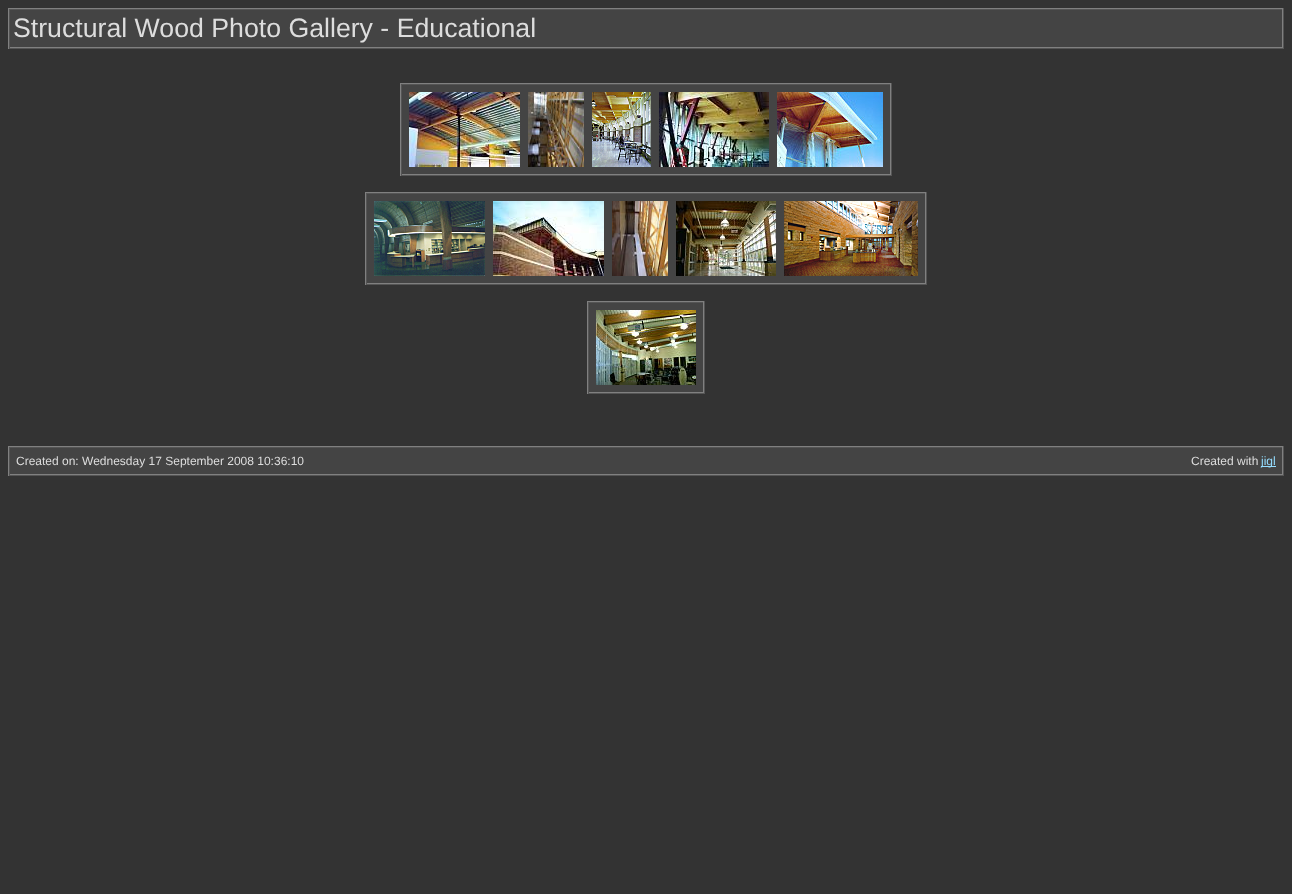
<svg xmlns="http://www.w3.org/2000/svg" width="1292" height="894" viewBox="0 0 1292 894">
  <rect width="100%" height="100%" fill="#333"/>
  <path d="M10 10h1272v37H10z" fill="#444"/>
  <path d="M8 8h1276v1H8z" fill="#808080"/>
  <path d="M1283 8h1v41H1283z" fill="#555"/>
  <path d="M8 48h1276v1H8z" fill="#555"/>
  <path d="M8 8h1v41H8z" fill="#808080"/>
  <path d="M9 9h1274v1H9z" fill="#555"/>
  <path d="M1282 9h1v39H1282z" fill="#808080"/>
  <path d="M9 47h1274v1H9z" fill="#808080"/>
  <path d="M9 9h1v39H9z" fill="#555"/>
  <path d="M402 85h488v89H402z" fill="#444"/>
  <path d="M400 83h492v1H400z" fill="#808080"/>
  <path d="M891 83h1v93H891z" fill="#555"/>
  <path d="M400 175h492v1H400z" fill="#555"/>
  <path d="M400 83h1v93H400z" fill="#808080"/>
  <path d="M401 84h490v1H401z" fill="#555"/>
  <path d="M890 84h1v91H890z" fill="#808080"/>
  <path d="M401 174h490v1H401z" fill="#808080"/>
  <path d="M401 84h1v91H401z" fill="#555"/>
  <image x="409" y="92" width="111" height="75" href="img/1.png"/>
  <image x="528" y="92" width="56" height="75" href="img/2.png"/>
  <image x="592" y="92" width="59" height="75" href="img/3.png"/>
  <image x="659" y="92" width="110" height="75" href="img/4.png"/>
  <image x="777" y="92" width="106" height="75" href="img/5.png"/>
  <path d="M367 194h558v89H367z" fill="#444"/>
  <path d="M365 192h562v1H365z" fill="#808080"/>
  <path d="M926 192h1v93H926z" fill="#555"/>
  <path d="M365 284h562v1H365z" fill="#555"/>
  <path d="M365 192h1v93H365z" fill="#808080"/>
  <path d="M366 193h560v1H366z" fill="#555"/>
  <path d="M925 193h1v91H925z" fill="#808080"/>
  <path d="M366 283h560v1H366z" fill="#808080"/>
  <path d="M366 193h1v91H366z" fill="#555"/>
  <image x="374" y="201" width="111" height="75" href="img/6.png"/>
  <image x="493" y="201" width="111" height="75" href="img/7.png"/>
  <image x="612" y="201" width="56" height="75" href="img/8.png"/>
  <image x="676" y="201" width="100" height="75" href="img/9.png"/>
  <image x="784" y="201" width="134" height="75" href="img/10.png"/>
  <path d="M589 303h114v89H589z" fill="#444"/>
  <path d="M587 301h118v1H587z" fill="#808080"/>
  <path d="M704 301h1v93H704z" fill="#555"/>
  <path d="M587 393h118v1H587z" fill="#555"/>
  <path d="M587 301h1v93H587z" fill="#808080"/>
  <path d="M588 302h116v1H588z" fill="#555"/>
  <path d="M703 302h1v91H703z" fill="#808080"/>
  <path d="M588 392h116v1H588z" fill="#808080"/>
  <path d="M588 302h1v91H588z" fill="#555"/>
  <image x="596" y="310" width="100" height="75" href="img/11.png"/>
  <path d="M10 448h1272v26H10z" fill="#444"/>
  <path d="M8 446h1276v1H8z" fill="#808080"/>
  <path d="M1283 446h1v30H1283z" fill="#555"/>
  <path d="M8 475h1276v1H8z" fill="#555"/>
  <path d="M8 446h1v30H8z" fill="#808080"/>
  <path d="M9 447h1274v1H9z" fill="#555"/>
  <path d="M1282 447h1v28H1282z" fill="#808080"/>
  <path d="M9 474h1274v1H9z" fill="#808080"/>
  <path d="M9 447h1v28H9z" fill="#555"/>
  <path d="M1261 466h15v1H1261z" fill="#95ddff"/>
  <text x="13" y="37" font-family="Liberation Sans" font-size="26.7" fill="#ddd">Structural Wood Photo Gallery - Educational</text>
  <g font-family="Liberation Sans" font-size="12" fill="#ddd">
    <text x="16" y="465">Created on: Wednesday 17 September 2008 10:36:10</text>
    <text x="1191" y="465">Created with</text>
  </g>
  <text x="1261" y="465" font-family="Liberation Sans" font-size="12" fill="#95ddff">jigl</text>
</svg>
